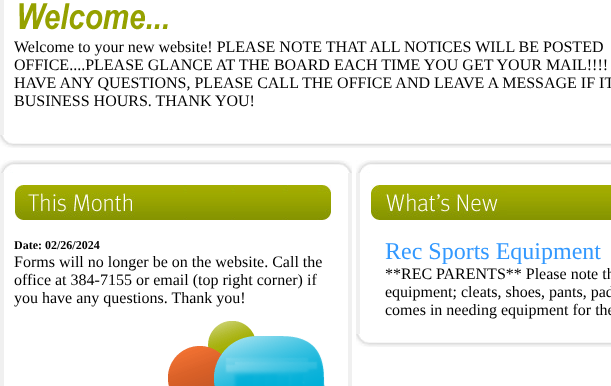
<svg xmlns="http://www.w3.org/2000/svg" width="611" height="386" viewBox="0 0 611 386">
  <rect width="100%" height="100%" fill="#fff"/>
  <path d="M0 0h4v135H0z" fill="#f0f0f0"/>
  <image x="19" y="3" width="149" height="27" href="img/1.png"/>
  <image x="0" y="135" width="611" height="13" href="img/2.png"/>
  <image x="0" y="160" width="352" height="13" href="img/3.png"/>
  <path d="M348 173h4v213H348z" fill="#f0f0f0"/>
  <path d="M0 173h4v213H0z" fill="#f0f0f0"/>
  <image x="15" y="185" width="316" height="35" href="img/4.png"/>
  <image x="168" y="321" width="157" height="65" href="img/5.png"/>
  <image x="356" y="160" width="255" height="13" href="img/6.png"/>
  <path d="M356 173h4v161H356z" fill="#f0f0f0"/>
  <image x="371" y="185" width="240" height="35" href="img/7.png"/>
  <image x="356" y="334" width="255" height="13" href="img/8.png"/>
  <g font-family="Liberation Serif" font-size="16" fill="#000">
    <text x="14" y="52">Welcome to your new website! PLEASE NOTE THAT ALL NOTICES WILL BE POSTED</text>
    <text x="14" y="70">OFFICE....PLEASE GLANCE AT THE BOARD EACH TIME YOU GET YOUR MAIL!!!!</text>
    <text x="14" y="88">HAVE ANY QUESTIONS, PLEASE CALL THE OFFICE AND LEAVE A MESSAGE IF IT</text>
    <text x="14" y="106">BUSINESS HOURS. THANK YOU!</text>
  </g>
  <text x="14" y="249" font-family="Liberation Serif" font-size="12" font-weight="bold" fill="#000">Date: 02/26/2024</text>
  <g font-family="Liberation Serif" font-size="16" fill="#000">
    <text x="14" y="267">Forms will no longer be on the website. Call the</text>
    <text x="14" y="285">office at 384-7155 or email (top right corner) if</text>
    <text x="14" y="303">you have any questions. Thank you!</text>
  </g>
  <text x="385" y="259" font-family="Liberation Serif" font-size="24" fill="#39f">Rec Sports Equipment</text>
  <g font-family="Liberation Serif" font-size="16" fill="#000">
    <text x="385" y="279">**REC PARENTS** Please note th</text>
    <text x="385" y="297">equipment; cleats, shoes, pants, pad</text>
    <text x="385" y="315">comes in needing equipment for the</text>
  </g>
</svg>
